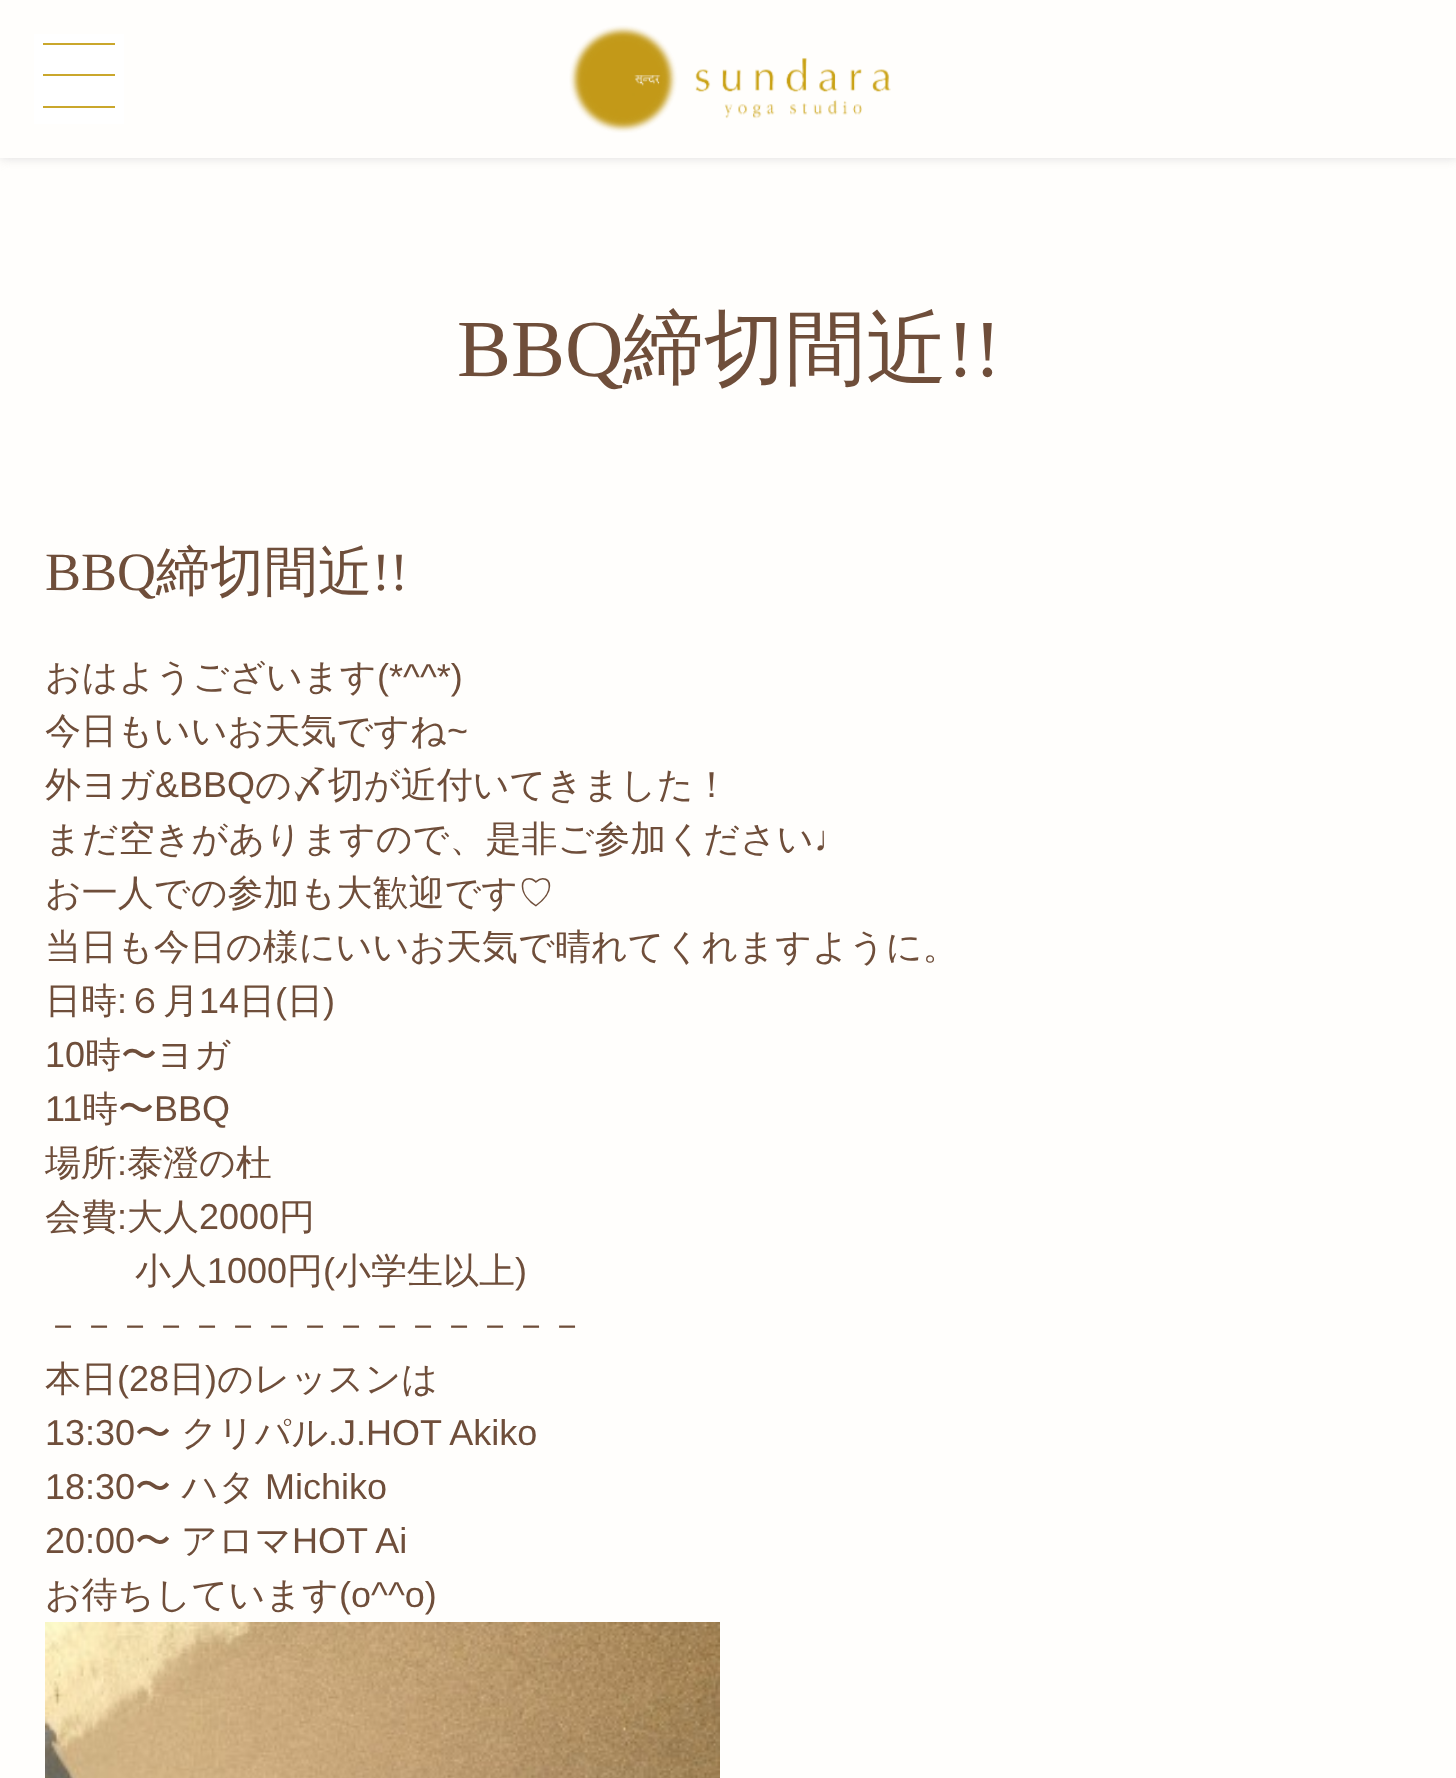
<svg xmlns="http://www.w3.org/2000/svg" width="1456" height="1778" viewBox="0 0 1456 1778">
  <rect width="100%" height="100%" fill="#fffefc"/>
  <path d="M0 0h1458v158H0z" fill="#ddd" filter="blur(5.5px)"/>
  <path d="M0 0h1456v158H0z" fill="#fffefc"/>
  <path d="M34 34h90v90H34z" fill="#fff"/>
  <path d="M43 43h72v2H43z" fill="#caa72c"/>
  <path d="M43 74h72v2H43z" fill="#caa72c"/>
  <path d="M43 106h72v2H43z" fill="#caa72c"/>
  <image x="569" y="25" width="322" height="108" href="img/1.png"/>
  <image x="45" y="1622" width="675" height="156" href="img/2.png"/>
  <text x="457" y="376" font-family="Liberation Serif" font-size="81" fill="#6f4e3a">BBQ</text>
  <text x="623" y="376" font-family="WenQuanYi Zen Hei" font-size="81" font-weight="500" fill="#6f4e3a">締切間近</text>
  <text x="947" y="376" font-family="Liberation Serif" font-size="81" fill="#6f4e3a">!!</text>
  <text x="45" y="590" font-family="Liberation Serif" font-size="54" fill="#6f4e3a">BBQ</text>
  <text x="156" y="590" font-family="WenQuanYi Zen Hei" font-size="54" font-weight="500" fill="#6f4e3a">締切間近</text>
  <text x="372" y="590" font-family="Liberation Serif" font-size="54" fill="#6f4e3a">!!</text>
  <text x="45" y="689" font-family="WenQuanYi Zen Hei" font-size="36" font-weight="500" fill="#6f4e3a">おはようございます</text>
  <text x="377" y="689" font-family="Liberation Sans" font-size="36" fill="#6f4e3a">(*^^*)</text>
  <text x="45" y="743" font-family="WenQuanYi Zen Hei" font-size="36" font-weight="500" fill="#6f4e3a">今日もいいお天気ですね</text>
  <text x="447" y="743" font-family="Liberation Sans" font-size="36" fill="#6f4e3a">~</text>
  <text x="45" y="797" font-family="WenQuanYi Zen Hei" font-size="36" font-weight="500" fill="#6f4e3a">外ヨガ</text>
  <text x="155" y="797" font-family="Liberation Sans" font-size="36" fill="#6f4e3a">&amp;BBQ</text>
  <g font-family="WenQuanYi Zen Hei" font-size="36" font-weight="500" fill="#6f4e3a">
    <text x="255" y="797">の〆切が近付いてきました！</text>
    <text x="45" y="851">まだ空きがありますので、是非ご参加ください</text>
  </g>
  <text x="814" y="851" font-family="Liberation Sans" font-size="36" fill="#6f4e3a">♩</text>
  <g font-family="WenQuanYi Zen Hei" font-size="36" font-weight="500" fill="#6f4e3a">
    <text x="45" y="905">お一人での参加も大歓迎です♡</text>
    <text x="45" y="959">当日も今日の様にいいお天気で晴れてくれますように。</text>
    <text x="45" y="1013">日時</text>
  </g>
  <text x="117" y="1013" font-family="Liberation Sans" font-size="36" fill="#6f4e3a">:</text>
  <text x="127" y="1013" font-family="WenQuanYi Zen Hei" font-size="36" font-weight="500" fill="#6f4e3a">６月</text>
  <text x="199" y="1013" font-family="Liberation Sans" font-size="36" fill="#6f4e3a">14</text>
  <text x="239" y="1013" font-family="WenQuanYi Zen Hei" font-size="36" font-weight="500" fill="#6f4e3a">日</text>
  <text x="275" y="1013" font-family="Liberation Sans" font-size="36" fill="#6f4e3a">(</text>
  <text x="287" y="1013" font-family="WenQuanYi Zen Hei" font-size="36" font-weight="500" fill="#6f4e3a">日</text>
  <g font-family="Liberation Sans" font-size="36" fill="#6f4e3a">
    <text x="323" y="1013">)</text>
    <text x="45" y="1067">10</text>
  </g>
  <text x="85" y="1067" font-family="WenQuanYi Zen Hei" font-size="36" font-weight="500" fill="#6f4e3a">時〜ヨガ</text>
  <text x="45" y="1121" font-family="Liberation Sans" font-size="36" fill="#6f4e3a">11</text>
  <text x="82" y="1121" font-family="WenQuanYi Zen Hei" font-size="36" font-weight="500" fill="#6f4e3a">時〜</text>
  <text x="154" y="1121" font-family="Liberation Sans" font-size="36" fill="#6f4e3a">BBQ</text>
  <text x="45" y="1175" font-family="WenQuanYi Zen Hei" font-size="36" font-weight="500" fill="#6f4e3a">場所</text>
  <text x="117" y="1175" font-family="Liberation Sans" font-size="36" fill="#6f4e3a">:</text>
  <g font-family="WenQuanYi Zen Hei" font-size="36" font-weight="500" fill="#6f4e3a">
    <text x="127" y="1175">泰澄の杜</text>
    <text x="45" y="1229">会費</text>
  </g>
  <text x="117" y="1229" font-family="Liberation Sans" font-size="36" fill="#6f4e3a">:</text>
  <text x="127" y="1229" font-family="WenQuanYi Zen Hei" font-size="36" font-weight="500" fill="#6f4e3a">大人</text>
  <text x="199" y="1229" font-family="Liberation Sans" font-size="36" fill="#6f4e3a">2000</text>
  <g font-family="WenQuanYi Zen Hei" font-size="36" font-weight="500" fill="#6f4e3a">
    <text x="279" y="1229">円</text>
    <text x="135" y="1283">小人</text>
  </g>
  <text x="207" y="1283" font-family="Liberation Sans" font-size="36" fill="#6f4e3a">1000</text>
  <text x="287" y="1283" font-family="WenQuanYi Zen Hei" font-size="36" font-weight="500" fill="#6f4e3a">円</text>
  <text x="323" y="1283" font-family="Liberation Sans" font-size="36" fill="#6f4e3a">(</text>
  <text x="335" y="1283" font-family="WenQuanYi Zen Hei" font-size="36" font-weight="500" fill="#6f4e3a">小学生以上</text>
  <text x="515" y="1283" font-family="Liberation Sans" font-size="36" fill="#6f4e3a">)</text>
  <g font-family="WenQuanYi Zen Hei" font-size="36" font-weight="500" fill="#6f4e3a">
    <text x="45" y="1337">－－－－－－－－－－－－－－－</text>
    <text x="45" y="1391">本日</text>
  </g>
  <text x="117" y="1391" font-family="Liberation Sans" font-size="36" fill="#6f4e3a">(28</text>
  <text x="169" y="1391" font-family="WenQuanYi Zen Hei" font-size="36" font-weight="500" fill="#6f4e3a">日</text>
  <text x="205" y="1391" font-family="Liberation Sans" font-size="36" fill="#6f4e3a">)</text>
  <text x="217" y="1391" font-family="WenQuanYi Zen Hei" font-size="36" font-weight="500" fill="#6f4e3a">のレッスンは</text>
  <text x="45" y="1445" font-family="Liberation Sans" font-size="36" fill="#6f4e3a">13:30</text>
  <g font-family="WenQuanYi Zen Hei" font-size="36" font-weight="500" fill="#6f4e3a">
    <text x="135" y="1445">〜</text>
    <text x="181" y="1445">クリパル</text>
  </g>
  <g font-family="Liberation Sans" font-size="36" fill="#6f4e3a">
    <text x="328" y="1445">.J.HOT Akiko</text>
    <text x="45" y="1499">18:30</text>
  </g>
  <text x="135" y="1499" font-family="WenQuanYi Zen Hei" font-size="36" font-weight="500" fill="#6f4e3a">〜 ハタ</text>
  <g font-family="Liberation Sans" font-size="36" fill="#6f4e3a">
    <text x="265" y="1499">Michiko</text>
    <text x="45" y="1553">20:00</text>
  </g>
  <g font-family="WenQuanYi Zen Hei" font-size="36" font-weight="500" fill="#6f4e3a">
    <text x="135" y="1553">〜</text>
    <text x="181" y="1553">アロマ</text>
  </g>
  <text x="292" y="1553" font-family="Liberation Sans" font-size="36" fill="#6f4e3a">HOT Ai</text>
  <text x="45" y="1607" font-family="WenQuanYi Zen Hei" font-size="36" font-weight="500" fill="#6f4e3a">お待ちしています</text>
  <text x="339" y="1607" font-family="Liberation Sans" font-size="36" fill="#6f4e3a">(o^^o)</text>
</svg>
